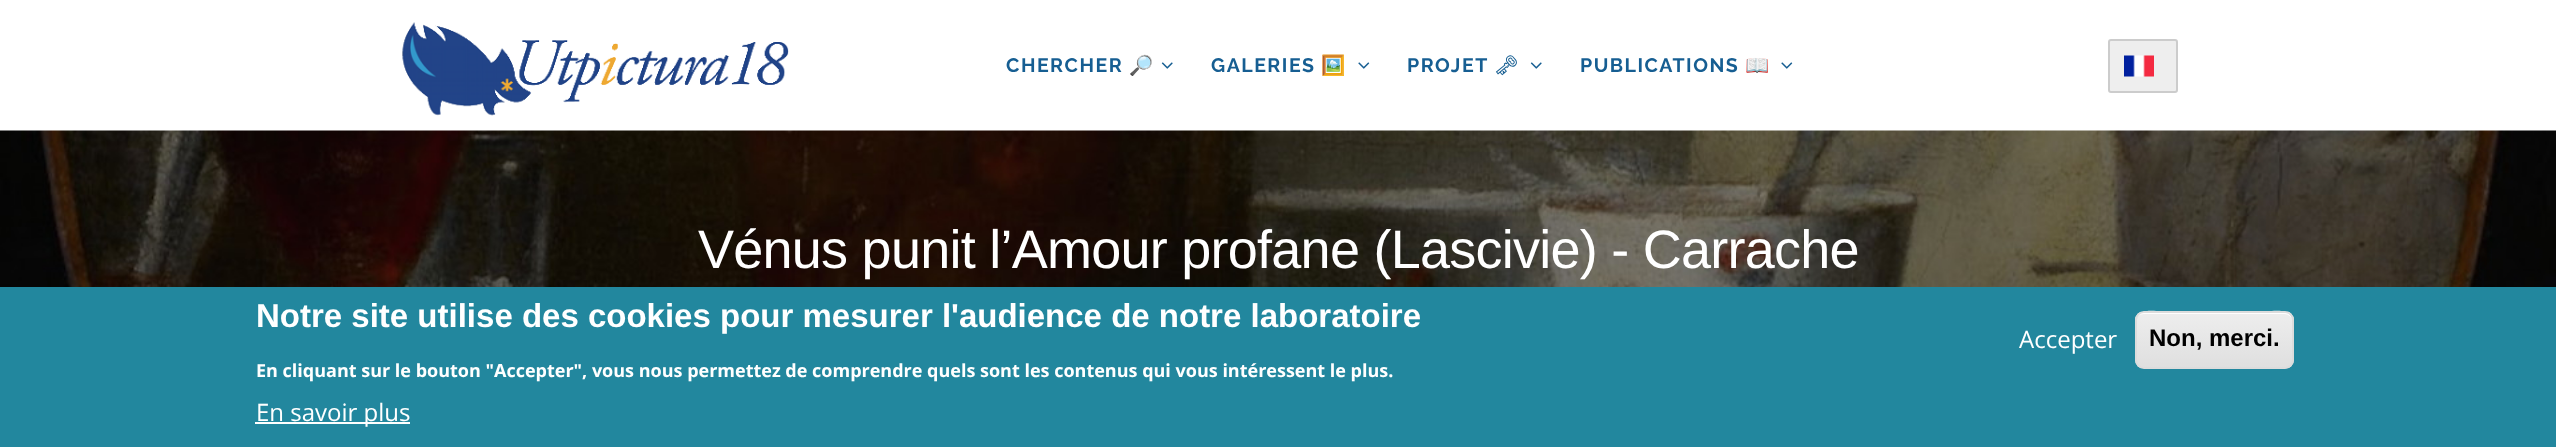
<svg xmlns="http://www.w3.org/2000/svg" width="2556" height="447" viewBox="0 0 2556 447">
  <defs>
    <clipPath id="clip1"><rect x="2135" y="311" width="159" height="58" rx="9"/></clipPath>
    <linearGradient id="g1" gradientUnits="userSpaceOnUse" x1="2214" y1="312" x2="2214" y2="368"><stop offset="0.05" stop-color="#ededed"/><stop offset="1" stop-color="#dfdfdf"/></linearGradient>
  </defs>
  <rect width="100%" height="100%" fill="#fff"/>
  <image x="402" y="22" width="387" height="94" href="img/1.png"/>
  <image x="1161" y="62" width="12" height="7" href="img/2.png"/>
  <image x="1358" y="62" width="12" height="7" href="img/3.png"/>
  <image x="1530" y="62" width="12" height="7" href="img/2.png"/>
  <image x="1781" y="62" width="12" height="7" href="img/3.png"/>
  <rect x="2109" y="40" width="68" height="52" rx="2" fill="#eee" stroke="#ccc" stroke-width="2"/>
  <image x="2124" y="55" width="30" height="22" href="img/4.png"/>
  <image x="0" y="130" width="2556" height="157" href="img/5.png"/>
  <path d="M0 287h2556v160H0z" fill="#22879e"/>
  <path d="M255 422h155v2H255z" fill="#fff"/>
  <g clip-path="url(#clip1)">
    <path d="M2135 312h159v56H2135z" fill="url(#g1)"/>
  </g>
  <path d="M2144 314H2284C2289 314 2292 317 2292 321C2292 306 2267 312 2261 312H2167C2161 312 2136 306 2136 321C2136 317 2139 314 2144 314Z" fill="#fff"/>
  <rect x="2136" y="312" width="157" height="56" rx="8" fill="none" stroke="#dcdcdc" stroke-width="2"/>
  <text x="1006" y="72" font-family="Raleway" font-size="19.5" font-weight="bold" letter-spacing="1.5" fill="#165e92">CHERCHER</text>
  <text x="1129" y="72" font-family="Noto Color Emoji" font-size="19.5" font-weight="bold" letter-spacing="1.5" fill="#165e92">🔎</text>
  <text x="1211" y="72" font-family="Raleway" font-size="19.5" font-weight="bold" letter-spacing="1.5" fill="#165e92">GALERIES</text>
  <text x="1321" y="72" font-family="Noto Color Emoji" font-size="19.5" font-weight="bold" letter-spacing="1.5" fill="#165e92">🖼️</text>
  <text x="1407" y="72" font-family="Raleway" font-size="19.5" font-weight="bold" letter-spacing="1.5" fill="#165e92">PROJET</text>
  <text x="1494" y="72" font-family="Noto Emoji" font-size="19.5" font-weight="bold" letter-spacing="1.5" fill="#165e92">🗝</text>
  <text x="1580" y="72" font-family="Raleway" font-size="19.5" font-weight="bold" letter-spacing="1.5" fill="#165e92">PUBLICATIONS</text>
  <text x="1745" y="72" font-family="Noto Color Emoji" font-size="19.5" font-weight="bold" letter-spacing="1.5" fill="#165e92">📖</text>
  <text x="698" y="268" font-family="Liberation Sans" font-size="54" letter-spacing="-0.75" fill="#fff">Vénus punit l’Amour profane (Lascivie) - Carrache</text>
  <text x="256" y="327" font-family="Liberation Sans" font-size="33" font-weight="bold" fill="#fff">Notre site utilise des cookies pour mesurer l'audience de notre laboratoire</text>
  <text x="256" y="377" font-family="Open Sans" font-size="18" font-weight="bold" fill="#fff">En cliquant sur le bouton "Accepter", vous nous permettez de comprendre quels sont les contenus qui vous intéressent le plus.</text>
  <g font-family="Open Sans" font-size="24" fill="#fff">
    <text x="256" y="421">En savoir plus</text>
    <text x="2019" y="348">Accepter</text>
  </g>
  <text x="2149" y="346" font-family="Liberation Sans" font-size="24" font-weight="bold" fill="#000">Non, merci.</text>
</svg>
